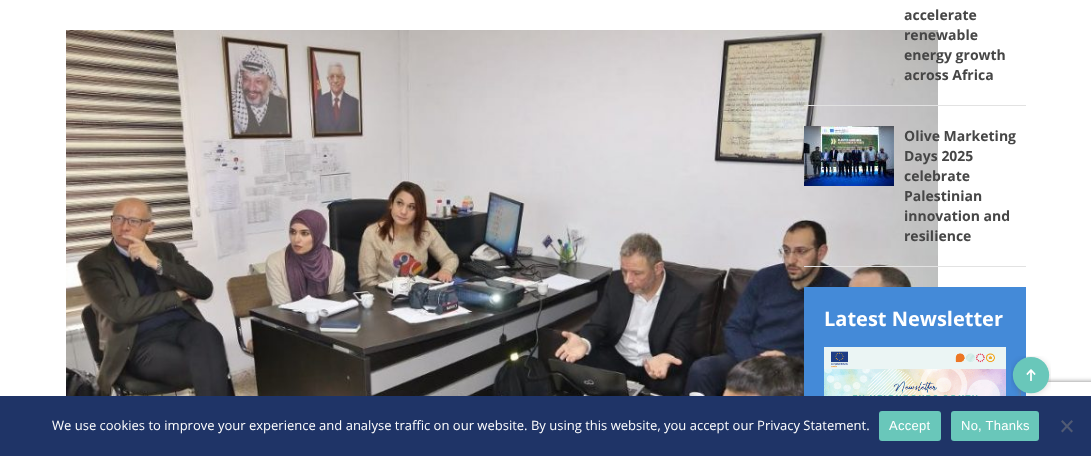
<svg xmlns="http://www.w3.org/2000/svg" width="1091" height="456" viewBox="0 0 1091 456">
  <defs>
    <clipPath id="clip1"><path d="M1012 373H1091V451H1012ZM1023 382H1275C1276 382 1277 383 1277 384V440C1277 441 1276 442 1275 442H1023C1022 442 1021 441 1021 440V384C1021 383 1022 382 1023 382Z" clip-rule="evenodd"/></clipPath>
  </defs>
  <rect width="100%" height="100%" fill="#fff"/>
  <image x="66" y="30" width="872" height="366" href="img/3.png"/>
  <path d="M804 105h222v1H804z" fill="#e2e2e2"/>
  <path d="M804 266h222v1H804z" fill="#e2e2e2"/>
  <image x="804" y="126" width="90" height="60" href="img/1.png"/>
  <path d="M804 287h222v109H804z" fill="#448ad8"/>
  <image x="824" y="347" width="182" height="49" href="img/2.png"/>
  <g clip-path="url(#clip1)">
    <rect x="1021" y="382" width="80" height="60" rx="2" fill="#808080" filter="blur(2.5px)"/>
  </g>
  <image x="1011" y="356" width="40" height="40" href="img/4.png"/>
  <path d="M0 396h1091v60H0z" fill="#1f3467"/>
  <rect x="879" y="411" width="62" height="30" rx="3" fill="#69c7ba"/>
  <rect x="951" y="411" width="88" height="30" rx="3" fill="#69c7ba"/>
  <path d="M1071.5 420L1073 421.5L1062.5 432.5L1061 431Z" fill="#505a74"/>
  <path d="M1061 421.5L1062.5 420L1073 431L1071.5 432.5Z" fill="#505a74"/>
  <g font-family="Open Sans" font-size="14" font-weight="bold" fill="#464646">
    <text x="904" y="20">accelerate</text>
    <text x="904" y="40">renewable</text>
    <text x="904" y="60">energy growth</text>
    <text x="904" y="80">across Africa</text>
    <text x="904" y="141">Olive Marketing</text>
    <text x="904" y="161">Days 2025</text>
    <text x="904" y="181">celebrate</text>
    <text x="904" y="201">Palestinian</text>
    <text x="904" y="221">innovation and</text>
    <text x="904" y="241">resilience</text>
  </g>
  <text x="824" y="326" font-family="Open Sans" font-size="20" font-weight="bold" fill="#fff">Latest Newsletter</text>
  <text x="52" y="430" font-family="Open Sans" font-size="13" fill="#fff">We use cookies to improve your experience and analyse traffic on our website. By using this website, you accept our Privacy Statement.</text>
  <g font-family="Liberation Sans" font-size="13" letter-spacing="0.25" fill="#fff">
    <text x="889" y="430">Accept</text>
    <text x="961" y="430">No, Thanks</text>
  </g>
</svg>
